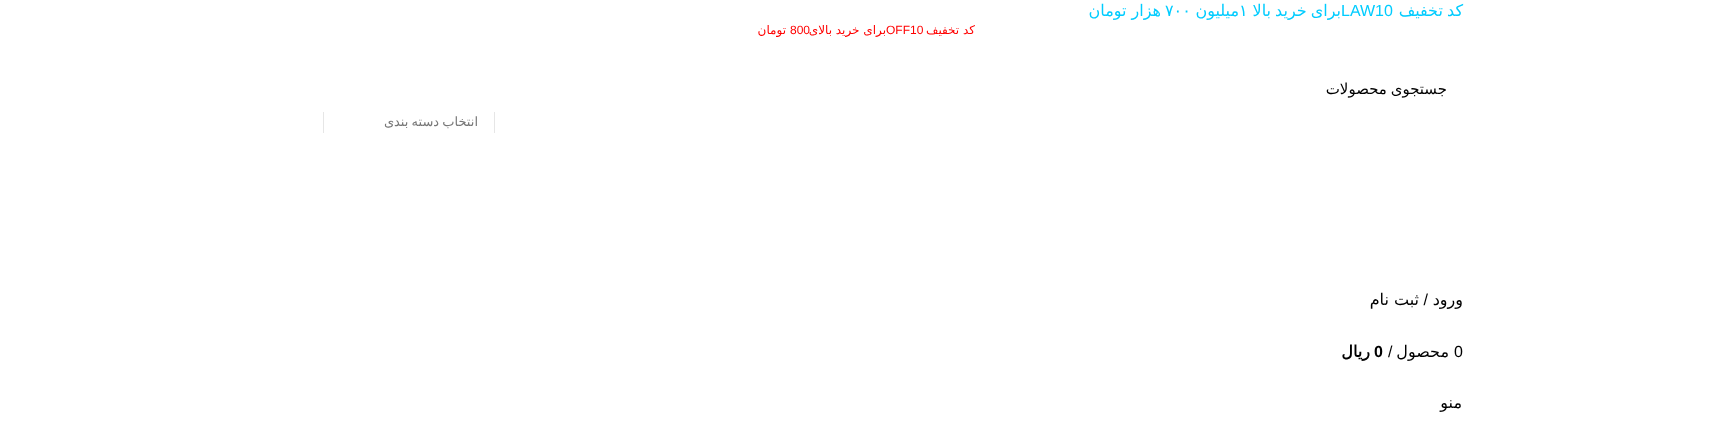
<svg xmlns="http://www.w3.org/2000/svg" width="1733" height="440" viewBox="0 0 1733 440">
  <rect width="100%" height="100%" fill="#fff"/>
  <path d="M494 112h1v21H494z" fill="#e6e6e6"/>
  <path d="M323 112h1v21H323z" fill="#e6e6e6"/>
  <text x="1463" y="16" word-spacing="-1" font-family="DejaVu Sans" font-size="16" direction="rtl" fill="#0cf">کد تخفیف</text>
  <text x="1341" y="16" font-family="Liberation Sans" font-size="16" fill="#0cf">LAW10</text>
  <text x="1341" y="16" word-spacing="-1" font-family="DejaVu Sans" font-size="16" direction="rtl" fill="#0cf">برای خرید بالا</text>
  <text x="1239" y="16" font-family="DejaVu Sans" font-size="16" fill="#0cf">۱</text>
  <text x="1239" y="16" font-family="DejaVu Sans" font-size="16" direction="rtl" fill="#0cf">میلیون</text>
  <text x="1165" y="16" font-family="DejaVu Sans" font-size="16" fill="#0cf">۷۰۰</text>
  <text x="1161" y="16" font-family="DejaVu Sans" font-size="16" direction="rtl" fill="#0cf">هزار تومان</text>
  <text x="975" y="34" font-family="DejaVu Sans" font-size="12" direction="rtl" fill="#f00">کد تخفیف</text>
  <text x="886" y="34" font-family="Liberation Sans" font-size="12" fill="#f00">OFF10</text>
  <text x="886" y="34" font-family="DejaVu Sans" font-size="12" direction="rtl" fill="#f00">برای خرید بالای</text>
  <text x="790" y="34" font-family="Liberation Sans" font-size="12" fill="#f00">800</text>
  <text x="786" y="34" font-family="DejaVu Sans" font-size="12" direction="rtl" fill="#f00">تومان</text>
  <text x="1447" y="94" word-spacing="-1" font-family="DejaVu Sans" font-size="15" direction="rtl" fill="#000">جستجوی محصولات</text>
  <text x="478" y="126" word-spacing="-1" font-family="DejaVu Sans" font-size="13" direction="rtl" fill="#777">انتخاب دسته بندی</text>
  <text x="1463" y="305" font-family="DejaVu Sans" font-size="16" direction="rtl" fill="#000">ورود</text>
  <text x="1428" y="305" font-family="Liberation Sans" font-size="16" direction="rtl" fill="#000">/</text>
  <text x="1419" y="305" font-family="DejaVu Sans" font-size="16" direction="rtl" fill="#000">ثبت نام</text>
  <text x="1454" y="357" font-family="Liberation Sans" font-size="16" fill="#000">0</text>
  <text x="1449" y="357" font-family="DejaVu Sans" font-size="16" direction="rtl" fill="#000">محصول</text>
  <text x="1388" y="357" font-family="Liberation Sans" font-size="16" fill="#000">/</text>
  <text x="1374" y="357" font-family="Liberation Sans" font-size="16" font-weight="bold" fill="#000">0</text>
  <text x="1370" y="357" font-family="DejaVu Sans" font-size="16" font-weight="bold" direction="rtl" fill="#000">ریال</text>
  <text x="1462" y="408" font-family="DejaVu Sans" font-size="16" direction="rtl" fill="#000">منو</text>
</svg>
